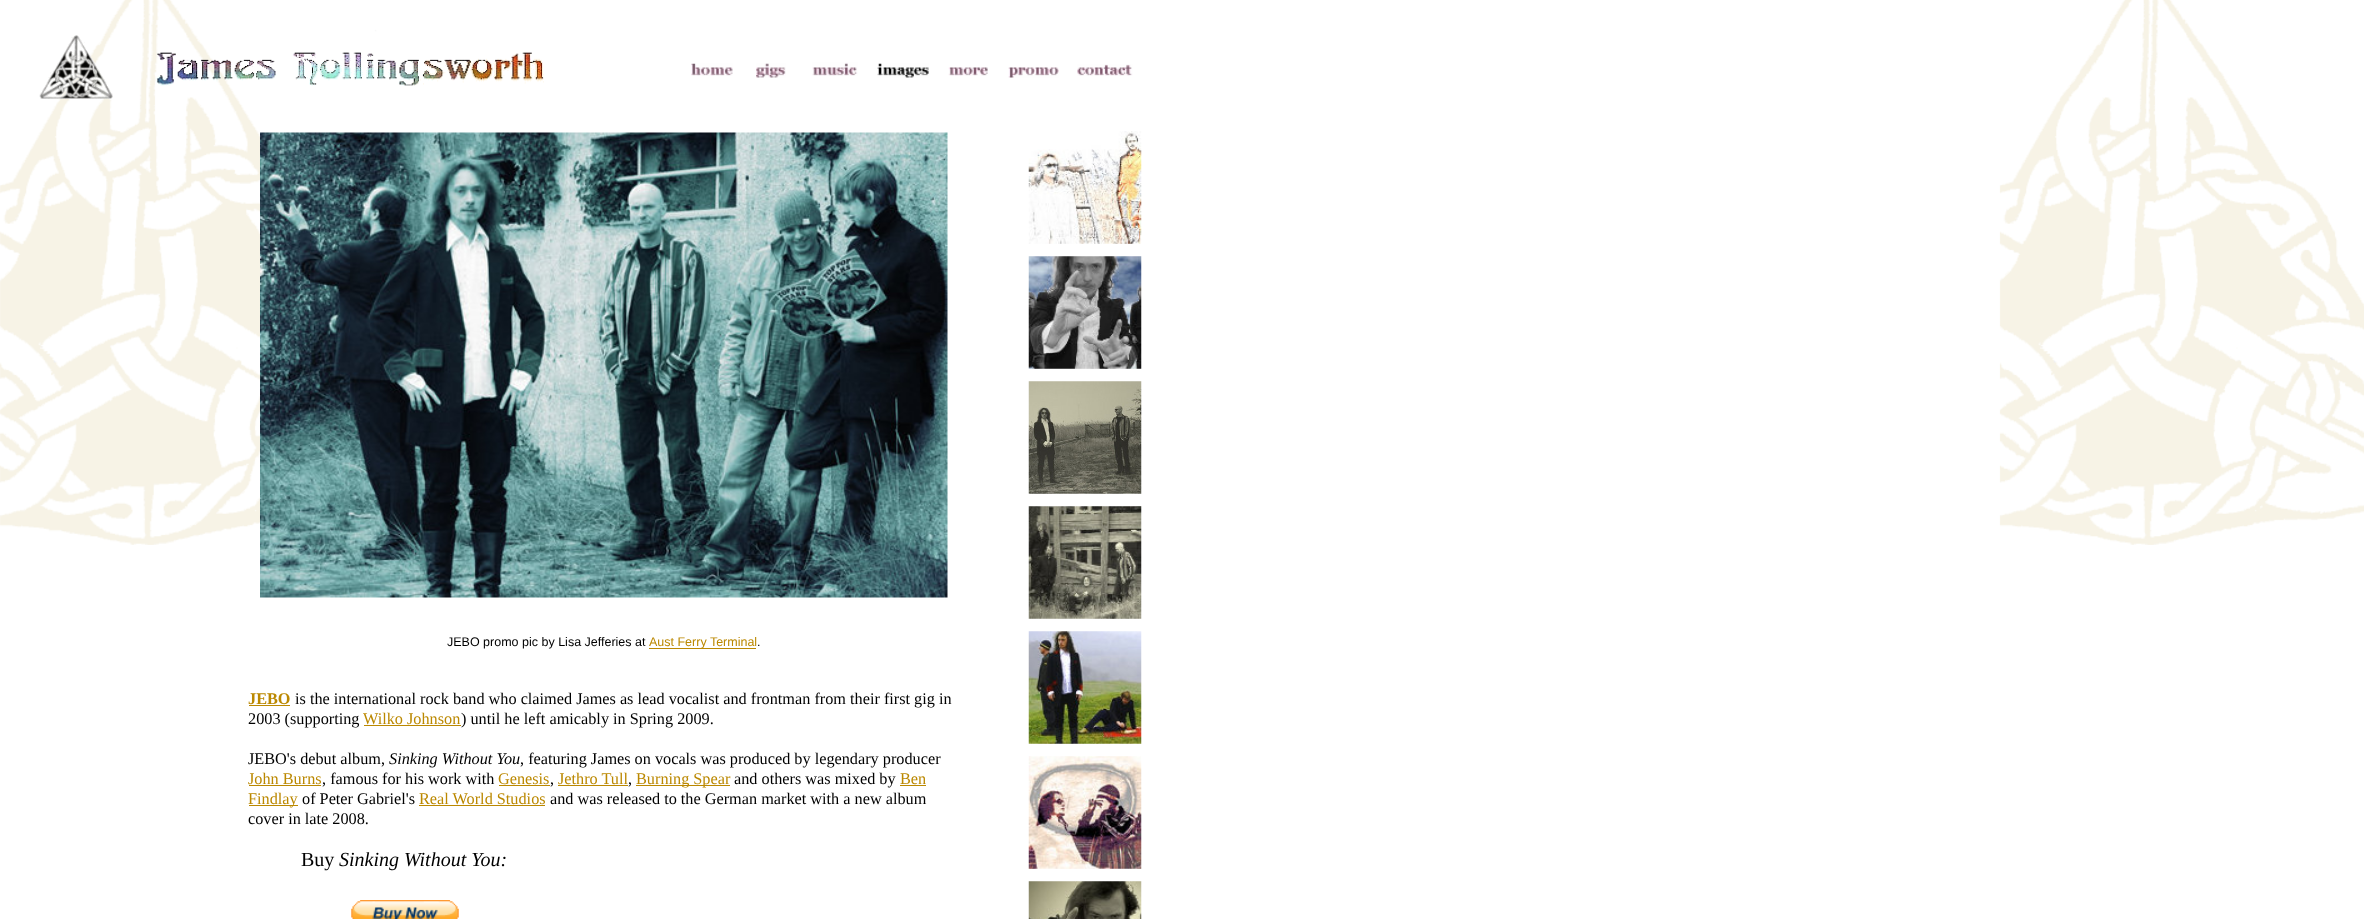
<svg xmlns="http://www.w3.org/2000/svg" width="2364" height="919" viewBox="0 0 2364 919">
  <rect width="100%" height="100%" fill="#fff"/>
  <image x="0" y="0" width="2364" height="545" href="img/1.png"/>
  <image x="39" y="35" width="74" height="64" href="img/2.png"/>
  <image x="156" y="52" width="388" height="34" href="img/3.png"/>
  <image x="691" y="63" width="42" height="13" href="img/4.png"/>
  <image x="756" y="63" width="30" height="15" href="img/5.png"/>
  <image x="812" y="62" width="46" height="14" href="img/6.png"/>
  <image x="877" y="63" width="52" height="15" href="img/7.png"/>
  <image x="948" y="67" width="40" height="9" href="img/8.png"/>
  <image x="1008" y="67" width="51" height="11" href="img/9.png"/>
  <image x="1077" y="64" width="56" height="12" href="img/10.png"/>
  <image x="260" y="132" width="688" height="466" href="img/11.png"/>
  <path d="M649 648h107v1H649z" fill="#b80"/>
  <path d="M249 705h41v1H249z" fill="#b80"/>
  <path d="M364 725h97v1H364z" fill="#b80"/>
  <path d="M249 785h72v1H249z" fill="#b80"/>
  <path d="M499 785h51v1H499z" fill="#b80"/>
  <path d="M558 785h70v1H558z" fill="#b80"/>
  <path d="M636 785h94v1H636z" fill="#b80"/>
  <path d="M900 785h26v1H900z" fill="#b80"/>
  <path d="M249 805h49v1H249z" fill="#b80"/>
  <path d="M419 805h126v1H419z" fill="#b80"/>
  <image x="351" y="900" width="108" height="19" href="img/12.png"/>
  <image x="1028" y="131" width="114" height="113" href="img/13.png"/>
  <image x="1028" y="256" width="114" height="113" href="img/14.png"/>
  <image x="1028" y="381" width="114" height="113" href="img/15.png"/>
  <image x="1028" y="506" width="114" height="113" href="img/16.png"/>
  <image x="1028" y="631" width="114" height="113" href="img/17.png"/>
  <image x="1028" y="756" width="114" height="113" href="img/18.png"/>
  <image x="1028" y="881" width="114" height="38" href="img/19.png"/>
  <text x="447" y="646" font-family="Liberation Sans" font-size="12.5" fill="#000">JEBO promo pic by Lisa Jefferies at</text>
  <text x="649" y="646" font-family="Liberation Sans" font-size="12.5" fill="#b80">Aust Ferry Terminal</text>
  <text x="757" y="646" font-family="Liberation Sans" font-size="12.5" fill="#000">.</text>
  <text x="248" y="704" font-family="Liberation Serif" font-size="16.25" font-weight="bold" fill="#b80">JEBO</text>
  <g font-family="Liberation Serif" font-size="16.25" fill="#000">
    <text x="295" y="704">is the international rock band who claimed James as lead vocalist and frontman from their first gig in</text>
    <text x="248" y="724">2003 (supporting</text>
  </g>
  <text x="363" y="724" font-family="Liberation Serif" font-size="16.25" fill="#b80">Wilko Johnson</text>
  <g font-family="Liberation Serif" font-size="16.25" fill="#000">
    <text x="461" y="724">) until he left amicably in Spring 2009.</text>
    <text x="248" y="764">JEBO's debut album,</text>
  </g>
  <text x="389" y="764" font-family="Liberation Serif" font-size="16.25" font-style="italic" fill="#000">Sinking Without You</text>
  <text x="520" y="764" font-family="Liberation Serif" font-size="16.25" fill="#000">, featuring James on vocals was produced by legendary producer</text>
  <text x="248" y="784" font-family="Liberation Serif" font-size="16.25" fill="#b80">John Burns</text>
  <text x="322" y="784" font-family="Liberation Serif" font-size="16.25" fill="#000">, famous for his work with</text>
  <text x="498" y="784" font-family="Liberation Serif" font-size="16.25" fill="#b80">Genesis</text>
  <text x="550" y="784" font-family="Liberation Serif" font-size="16.25" fill="#000">,</text>
  <text x="558" y="784" font-family="Liberation Serif" font-size="16.25" fill="#b80">Jethro Tull</text>
  <text x="628" y="784" font-family="Liberation Serif" font-size="16.25" fill="#000">,</text>
  <text x="636" y="784" font-family="Liberation Serif" font-size="16.25" fill="#b80">Burning Spear</text>
  <text x="734" y="784" font-family="Liberation Serif" font-size="16.25" fill="#000">and others was mixed by</text>
  <g font-family="Liberation Serif" font-size="16.25" fill="#b80">
    <text x="900" y="784">Ben</text>
    <text x="248" y="804">Findlay</text>
  </g>
  <text x="302" y="804" font-family="Liberation Serif" font-size="16.25" fill="#000">of Peter Gabriel's</text>
  <text x="419" y="804" font-family="Liberation Serif" font-size="16.25" fill="#b80">Real World Studios</text>
  <g font-family="Liberation Serif" font-size="16.25" fill="#000">
    <text x="550" y="804">and was released to the German market with a new album</text>
    <text x="248" y="824">cover in late 2008.</text>
  </g>
  <text x="301" y="866" font-family="Liberation Serif" font-size="20" fill="#000">Buy</text>
  <text x="339" y="866" font-family="Liberation Serif" font-size="20" font-style="italic" fill="#000">Sinking Without You:</text>
</svg>
